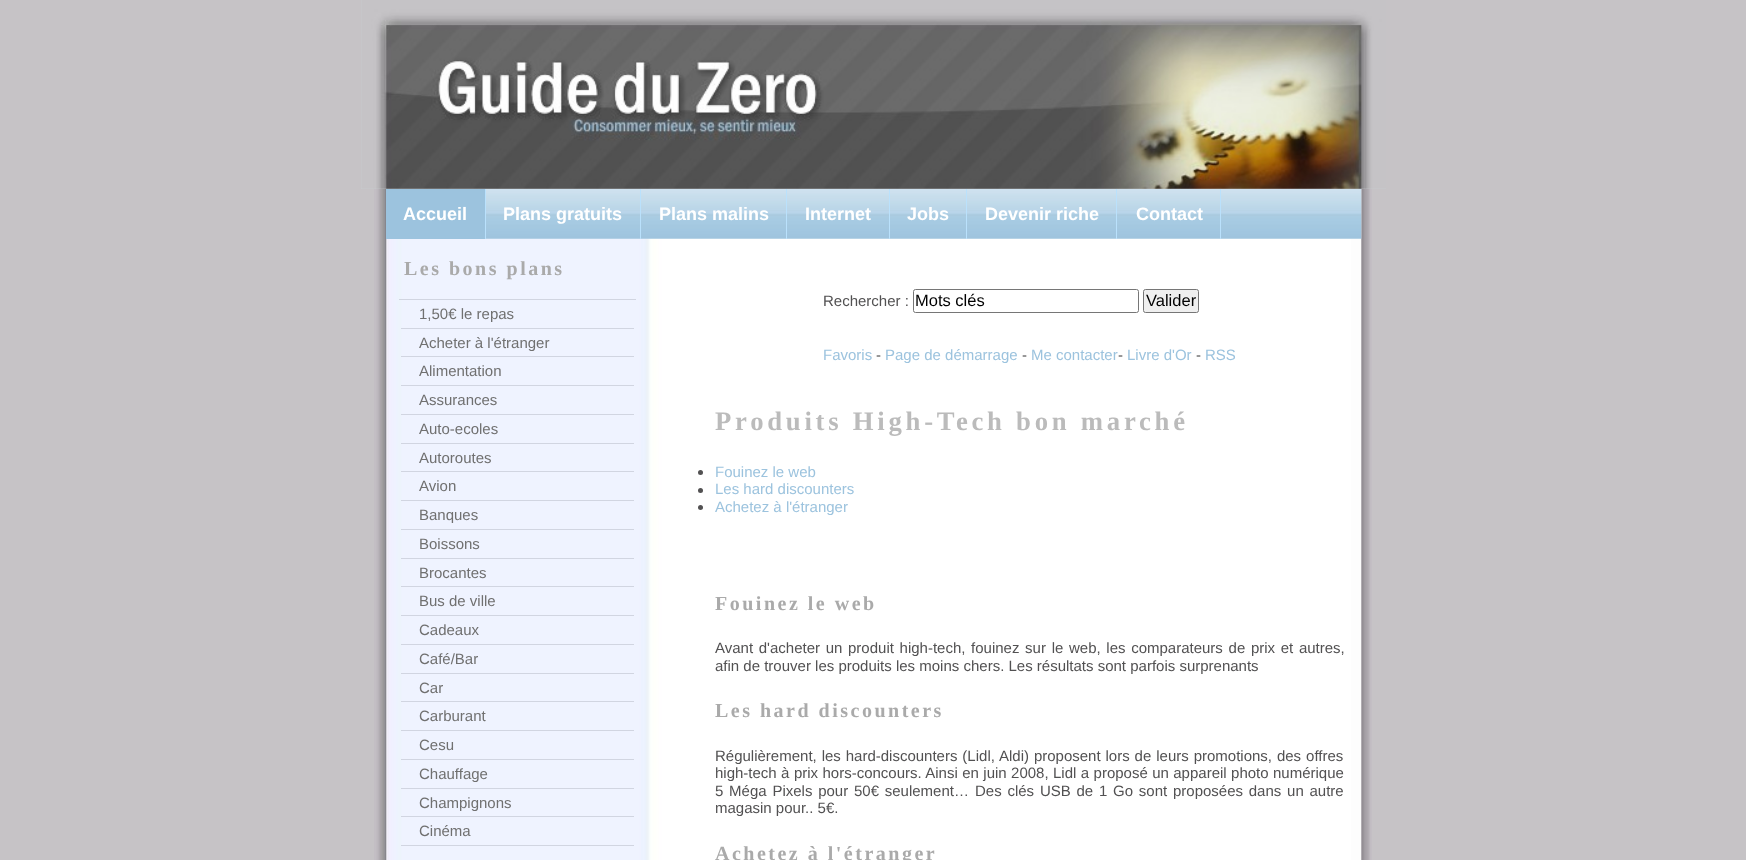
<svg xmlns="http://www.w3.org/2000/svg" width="1746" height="860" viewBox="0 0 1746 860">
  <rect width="100%" height="100%" fill="#c6c3c6"/>
  <image x="374" y="189" width="998" height="671" href="img/1.png"/>
  <path d="M361 0h1025v189H361z" fill="#caced1"/>
  <image x="361" y="0" width="1025" height="189" href="img/2.png"/>
  <image x="486" y="189" width="876" height="50" href="img/3.png"/>
  <path d="M386 189h99v50H386z" fill="#9cc3de"/>
  <path d="M485 189h1v50H485z" fill="#bae1fc"/>
  <path d="M640 189h1v50H640z" fill="#bae1fc"/>
  <path d="M786 189h1v50H786z" fill="#bae1fc"/>
  <path d="M889 189h1v50H889z" fill="#bae1fc"/>
  <path d="M966 189h1v50H966z" fill="#bae1fc"/>
  <path d="M1116 189h1v50H1116z" fill="#bae1fc"/>
  <path d="M1220 189h1v50H1220z" fill="#bae1fc"/>
  <path d="M399 299h237v1H399z" fill="#d1d5e1"/>
  <path d="M401 328h233v1H401z" fill="#d1d5e1"/>
  <path d="M401 356h233v1H401z" fill="#d1d5e1"/>
  <path d="M401 385h233v1H401z" fill="#d1d5e1"/>
  <path d="M401 414h233v1H401z" fill="#d1d5e1"/>
  <path d="M401 443h233v1H401z" fill="#d1d5e1"/>
  <path d="M401 471h233v1H401z" fill="#d1d5e1"/>
  <path d="M401 500h233v1H401z" fill="#d1d5e1"/>
  <path d="M401 529h233v1H401z" fill="#d1d5e1"/>
  <path d="M401 558h233v1H401z" fill="#d1d5e1"/>
  <path d="M401 586h233v1H401z" fill="#d1d5e1"/>
  <path d="M401 615h233v1H401z" fill="#d1d5e1"/>
  <path d="M401 644h233v1H401z" fill="#d1d5e1"/>
  <path d="M401 673h233v1H401z" fill="#d1d5e1"/>
  <path d="M401 701h233v1H401z" fill="#d1d5e1"/>
  <path d="M401 730h233v1H401z" fill="#d1d5e1"/>
  <path d="M401 759h233v1H401z" fill="#d1d5e1"/>
  <path d="M401 788h233v1H401z" fill="#d1d5e1"/>
  <path d="M401 816h233v1H401z" fill="#d1d5e1"/>
  <path d="M401 845h233v1H401z" fill="#d1d5e1"/>
  <rect x="913.5" y="289.5" width="225" height="23" rx="2" fill="none" stroke="#767676"/>
  <rect x="1143.5" y="289.5" width="55" height="23" rx="2" fill="#efefef" stroke="#767676"/>
  <circle cx="700.5" cy="472.5" r="2.5" fill="#525152"/>
  <circle cx="700.5" cy="490.5" r="2.5" fill="#525152"/>
  <circle cx="700.5" cy="507.5" r="2.5" fill="#525152"/>
  <g font-family="Liberation Sans" font-size="18" font-weight="bold" fill="#fff">
    <text x="403" y="220">Accueil</text>
    <text x="503" y="220">Plans gratuits</text>
    <text x="659" y="220">Plans malins</text>
    <text x="805" y="220">Internet</text>
    <text x="907" y="220">Jobs</text>
    <text x="985" y="220">Devenir riche</text>
    <text x="1136" y="220">Contact</text>
  </g>
  <text x="404" y="275" font-family="Liberation Serif" font-size="20" font-weight="bold" letter-spacing="2.5" fill="#aaa">Les bons plans</text>
  <g font-family="Liberation Sans" font-size="15" fill="#707070">
    <text x="419" y="319">1,50€ le repas</text>
    <text x="419" y="348">Acheter à l'étranger</text>
    <text x="419" y="376">Alimentation</text>
    <text x="419" y="405">Assurances</text>
    <text x="419" y="434">Auto-ecoles</text>
    <text x="419" y="463">Autoroutes</text>
    <text x="419" y="491">Avion</text>
    <text x="419" y="520">Banques</text>
    <text x="419" y="549">Boissons</text>
    <text x="419" y="578">Brocantes</text>
    <text x="419" y="606">Bus de ville</text>
    <text x="419" y="635">Cadeaux</text>
    <text x="419" y="664">Café/Bar</text>
    <text x="419" y="693">Car</text>
    <text x="419" y="721">Carburant</text>
    <text x="419" y="750">Cesu</text>
    <text x="419" y="779">Chauffage</text>
    <text x="419" y="808">Champignons</text>
    <text x="419" y="836">Cinéma</text>
  </g>
  <text x="823" y="306" font-family="Liberation Sans" font-size="15" fill="#525152">Rechercher :</text>
  <g font-family="Liberation Sans" font-size="16.5" fill="#000">
    <text x="915" y="306">Mots clés</text>
    <text x="1146" y="306">Valider</text>
  </g>
  <text x="823" y="360" font-family="Liberation Sans" font-size="15" fill="#9cc3de">Favoris</text>
  <text x="876" y="360" font-family="Liberation Sans" font-size="15" fill="#525152">-</text>
  <text x="885" y="360" font-family="Liberation Sans" font-size="15" fill="#9cc3de">Page de démarrage</text>
  <text x="1022" y="360" font-family="Liberation Sans" font-size="15" fill="#525152">-</text>
  <text x="1031" y="360" font-family="Liberation Sans" font-size="15" fill="#9cc3de">Me contacter</text>
  <text x="1118" y="360" font-family="Liberation Sans" font-size="15" fill="#525152">-</text>
  <text x="1127" y="360" font-family="Liberation Sans" font-size="15" fill="#9cc3de">Livre d'Or</text>
  <text x="1196" y="360" font-family="Liberation Sans" font-size="15" fill="#525152">-</text>
  <text x="1205" y="360" font-family="Liberation Sans" font-size="15" fill="#9cc3de">RSS</text>
  <text x="715" y="430" font-family="Liberation Serif" font-size="26.7" font-weight="bold" letter-spacing="3.75" fill="#bbb">Produits High-Tech bon marché</text>
  <g font-family="Liberation Sans" font-size="15" fill="#9cc3de">
    <text x="715" y="477">Fouinez le web</text>
    <text x="715" y="494">Les hard discounters</text>
    <text x="715" y="512">Achetez à l'étranger</text>
  </g>
  <text x="715" y="610" font-family="Liberation Serif" font-size="20" font-weight="bold" letter-spacing="2.5" fill="#aaa">Fouinez le web</text>
  <g font-family="Liberation Sans" font-size="15" fill="#525152">
    <text x="715" y="653" word-spacing="1.5">Avant d'acheter un produit high-tech, fouinez sur le web, les comparateurs de prix et autres,</text>
    <text x="715" y="671">afin de trouver les produits les moins chers. Les résultats sont parfois surprenants</text>
  </g>
  <text x="715" y="717" font-family="Liberation Serif" font-size="20" font-weight="bold" letter-spacing="2.5" fill="#aaa">Les hard discounters</text>
  <g font-family="Liberation Sans" font-size="15" fill="#525152">
    <text x="715" y="761" word-spacing="0.75">Régulièrement, les hard-discounters (Lidl, Aldi) proposent lors de leurs promotions, des offres</text>
    <text x="715" y="778" word-spacing="0.25">high-tech à prix hors-concours. Ainsi en juin 2008, Lidl a proposé un appareil photo numérique</text>
    <text x="715" y="796" word-spacing="1.6">5 Méga Pixels pour 50€ seulement…</text>
    <text x="975" y="796" word-spacing="1.6">Des clés USB de 1 Go sont proposées dans un autre</text>
    <text x="715" y="813">magasin pour.. 5€.</text>
  </g>
  <text x="715" y="860" font-family="Liberation Serif" font-size="20" font-weight="bold" letter-spacing="2.5" fill="#aaa">Achetez à l'étranger</text>
</svg>
